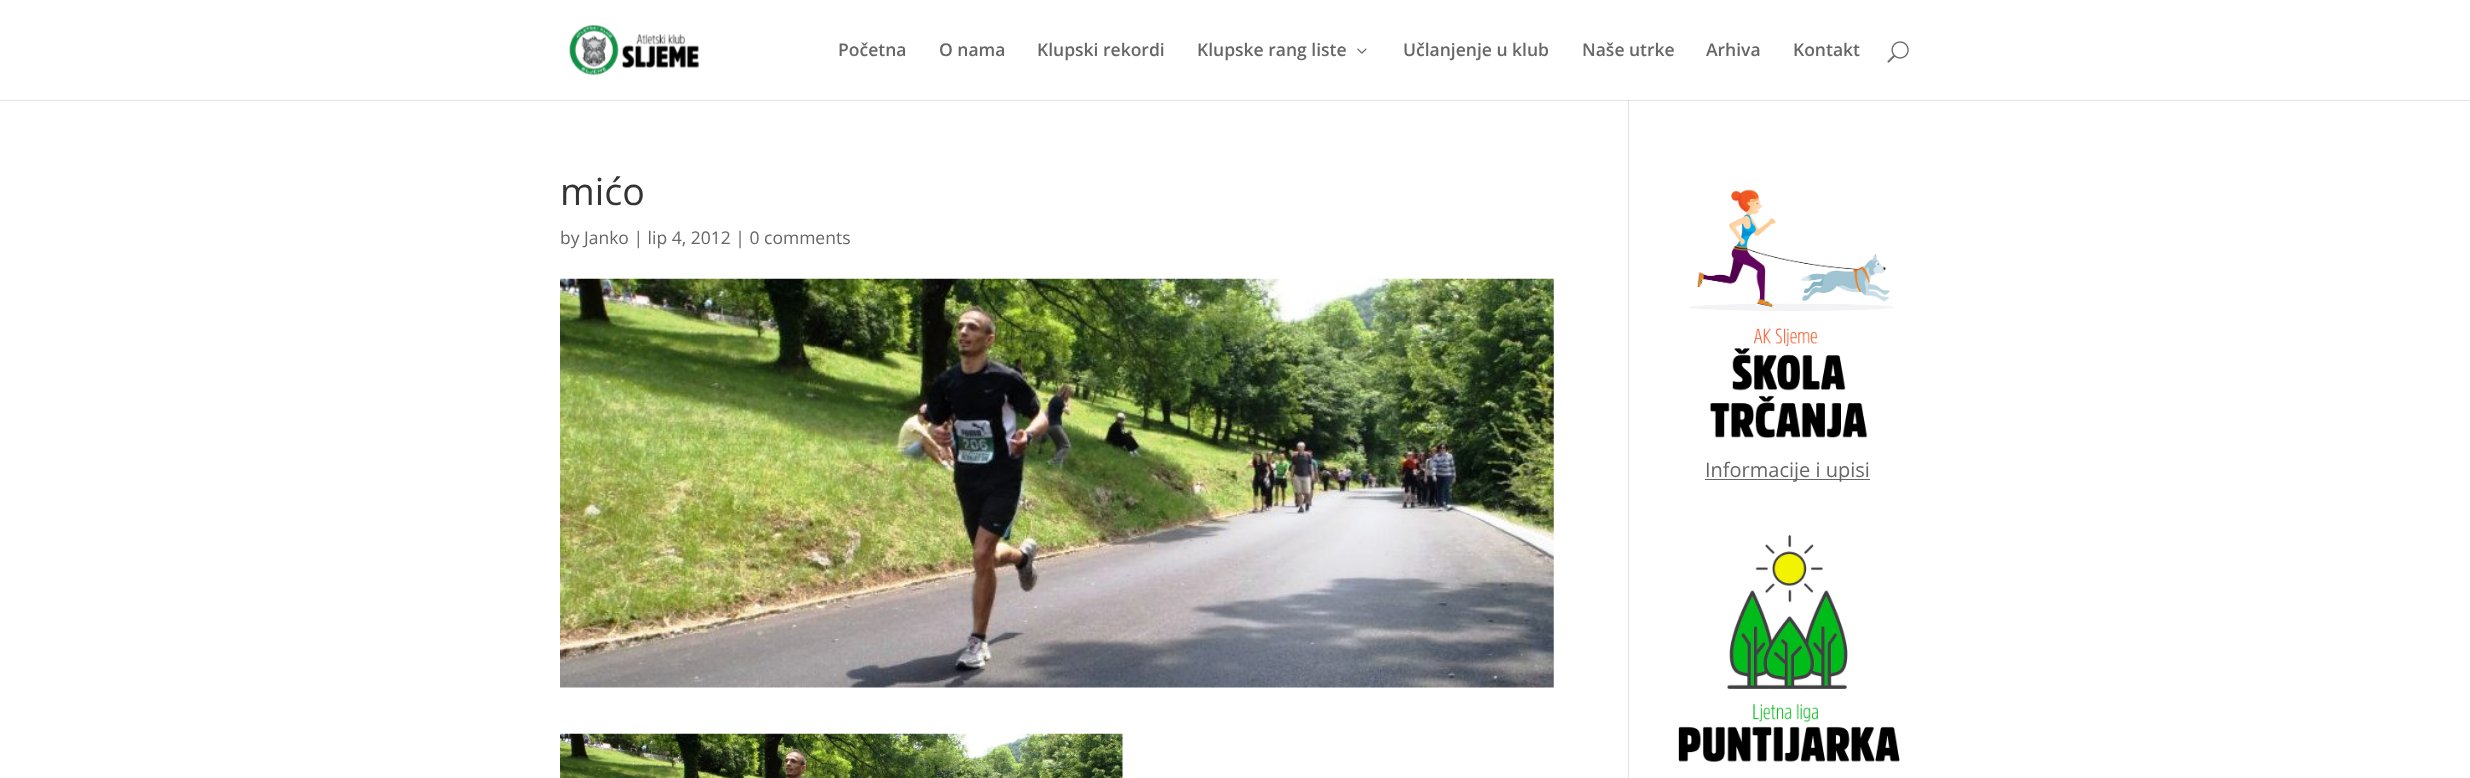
<svg xmlns="http://www.w3.org/2000/svg" width="2470" height="778" viewBox="0 0 2470 778">
  <rect width="100%" height="100%" fill="#fff"/>
  <path d="M0 100h2470v1H0z" fill="#e6e6e6"/>
  <image x="569" y="25" width="130" height="50" href="img/1.png"/>
  <image x="1357" y="48" width="10" height="6" href="img/2.png"/>
  <image x="1887" y="41" width="22" height="22" href="img/3.png"/>
  <path d="M1628 100h1v678H1628z" fill="#e2e2e2"/>
  <path d="M1628 100h1v1H1628z" fill="#cbcbcb"/>
  <image x="560" y="278" width="994" height="410" href="img/4.png"/>
  <image x="560" y="733" width="563" height="45" href="img/5.png"/>
  <image x="1689" y="189" width="205" height="250" href="img/6.png"/>
  <path d="M1705 479h165v1H1705z" fill="#666"/>
  <image x="1678" y="535" width="222" height="228" href="img/7.png"/>
  <g font-family="Open Sans" font-size="17.5" font-weight="600" fill="#666">
    <text x="838" y="56">Početna</text>
    <text x="939" y="56">O nama</text>
    <text x="1037" y="56">Klupski rekordi</text>
    <text x="1197" y="56">Klupske rang liste</text>
    <text x="1403" y="56">Učlanjenje u klub</text>
    <text x="1582" y="56">Naše utrke</text>
    <text x="1706" y="56">Arhiva</text>
    <text x="1793" y="56">Kontakt</text>
  </g>
  <text x="560" y="205" font-family="Open Sans" font-size="37.5" fill="#333">mićo</text>
  <text x="560" y="244" font-family="Open Sans" font-size="17.5" fill="#666">by Janko | lip 4, 2012 | 0 comments</text>
  <text x="1705" y="477" font-family="Open Sans" font-size="20" fill="#666">Informacije i upisi</text>
</svg>
